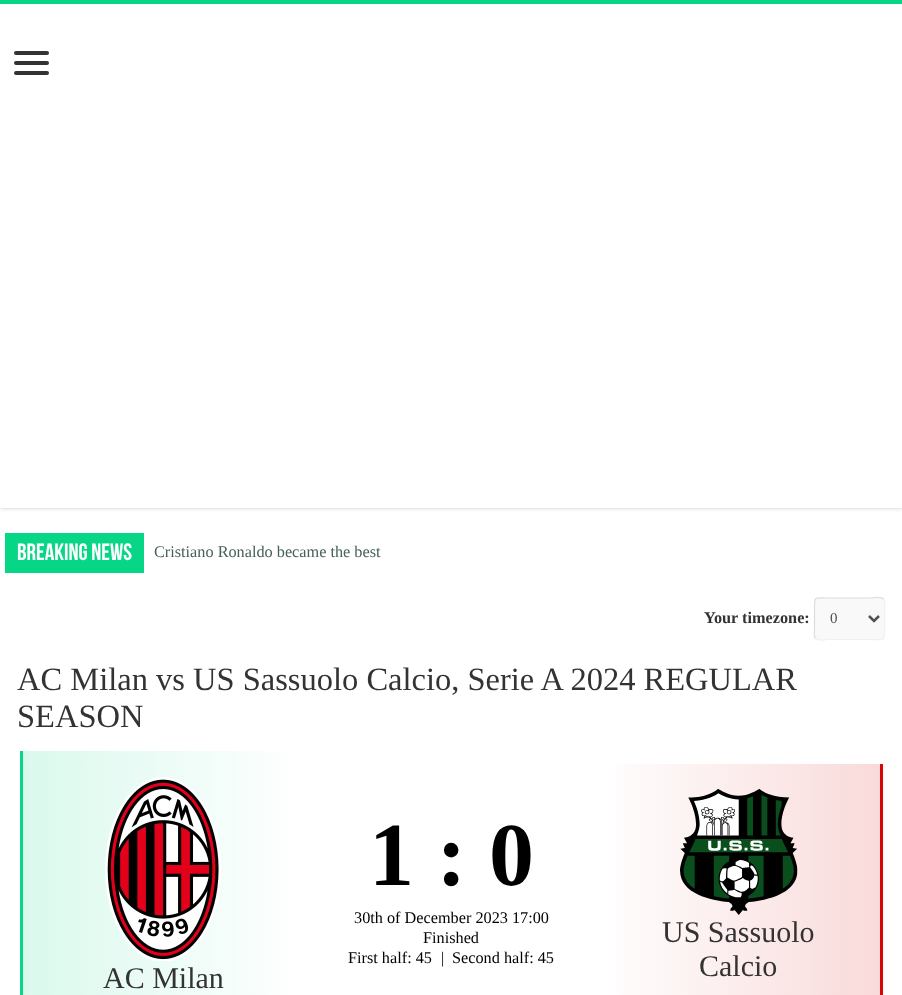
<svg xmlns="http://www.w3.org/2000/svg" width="902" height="995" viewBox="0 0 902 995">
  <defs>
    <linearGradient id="g1" gradientUnits="userSpaceOnUse" x1="23" y1="886" x2="306" y2="886"><stop offset="0" stop-color="#daf9ed"/><stop offset="1" stop-color="#fff"/></linearGradient>
    <linearGradient id="g2" gradientUnits="userSpaceOnUse" x1="880" y1="886" x2="596" y2="886"><stop offset="0" stop-color="#f9dada"/><stop offset="1" stop-color="#fff"/></linearGradient>
  </defs>
  <rect width="100%" height="100%" fill="#fff"/>
  <path d="M0 0h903v508H0z" fill="#cacaca" filter="blur(2px)"/>
  <path d="M0 4h902v504H0z" fill="#fff"/>
  <path d="M0 0h902v4H0z" fill="#06d685"/>
  <rect x="14" y="51" width="35" height="4" rx="2" fill="#333"/>
  <rect x="14" y="61" width="35" height="4" rx="2" fill="#333"/>
  <rect x="14" y="71" width="35" height="4" rx="2" fill="#333"/>
  <path d="M5 533h893v40H5z" fill="#cacaca" filter="blur(0.5px)"/>
  <path d="M144 533h754v40H144z" fill="#fff"/>
  <path d="M5 533h139v40H5z" fill="#06d685"/>
  <rect x="814" y="598" width="71" height="42" rx="4" fill="#f9f9f9"/>
  <path d="M883.5 599C885.5 601 884.5 605.5 884.5 607V630.5C884.5 642 883.5 639.5 870.5 639.5H828C828 639.5 818 641 815.5 638.5" fill="none" stroke="#f1f1f1" stroke-width="1.2"/>
  <path d="M815.5 638.5C813.5 636.5 814.5 632 814.5 630.5V607C814.5 595.5 815 598 828 598H870.5C870.5 598 881 596.5 883.5 599" fill="none" stroke="#ddd" stroke-width="1.2"/>
  <path d="M869 616L874 621L879 616" fill="none" stroke="#515151" stroke-width="2.5"/>
  <path d="M23 751h264v244H23z" fill="url(#g1)"/>
  <path d="M20 751h3v244H20z" fill="#06d685"/>
  <image x="105" y="777" width="116" height="184" href="img/1.png"/>
  <path d="M615 764h265v231H615z" fill="url(#g2)"/>
  <path d="M880 764h3v231H880z" fill="#da0605"/>
  <image x="680" y="789" width="118" height="126" href="img/2.png"/>
  <text x="17" y="560" font-family="Bebas Neue" font-size="23.5" font-weight="bold" fill="#fff">Breaking News</text>
  <text x="154" y="557" font-family="Liberation Serif" font-size="16.25" fill="#466156">Cristiano Ronaldo became the best</text>
  <text x="704" y="623" font-family="Liberation Serif" font-size="16.25" font-weight="bold" fill="#333">Your timezone:</text>
  <text x="830" y="623" font-family="Liberation Serif" font-size="15" fill="#515151">0</text>
  <g font-family="Liberation Serif" font-size="32.5" fill="#333">
    <text x="17" y="690">AC Milan vs US Sassuolo Calcio, Serie A 2024 REGULAR</text>
    <text x="17" y="727">SEASON</text>
  </g>
  <text x="103" y="988" font-family="Liberation Serif" font-size="30" fill="#333">AC Milan</text>
  <text x="369" y="885" font-family="Liberation Serif" font-size="90" font-weight="bold" fill="#000">1 : 0</text>
  <g font-family="Liberation Serif" font-size="16.25" fill="#000">
    <text x="354" y="923">30th of December 2023 17:00</text>
    <text x="423" y="943">Finished</text>
    <text x="348" y="963">First half: 45</text>
    <text x="441" y="963">|</text>
    <text x="452" y="963">Second half: 45</text>
  </g>
  <g font-family="Liberation Serif" font-size="30" fill="#333">
    <text x="662" y="942">US Sassuolo</text>
    <text x="699" y="976">Calcio</text>
  </g>
</svg>
